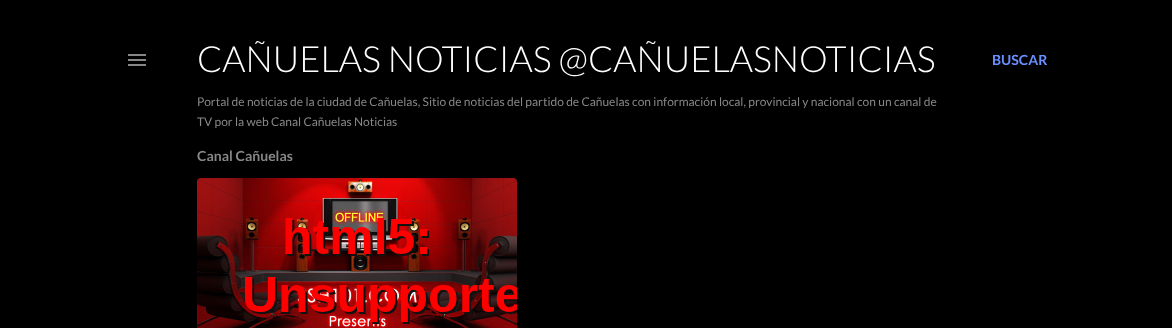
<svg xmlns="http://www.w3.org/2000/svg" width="1172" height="328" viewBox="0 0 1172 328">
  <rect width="100%" height="100%" fill="#000"/>
  <image x="128" y="54" width="18" height="12" href="img/1.png"/>
  <image x="197" y="178" width="320" height="150" href="img/2.png"/>
  <text x="197" y="72" font-family="Lato" font-size="36" font-weight="300" fill="#fff">CAÑUELAS NOTICIAS @CAÑUELASNOTICIAS</text>
  <g font-family="Lato" font-size="12" fill="#878787">
    <text x="197" y="106">Portal de noticias de la ciudad de Cañuelas, Sitio de noticias del partido de Cañuelas con información local, provincial y nacional con un canal de</text>
    <text x="197" y="126">TV por la web Canal Cañuelas Noticias</text>
  </g>
  <text x="197" y="161" font-family="Lato" font-size="14" font-weight="bold" fill="#878787">Canal Cañuelas</text>
  <text x="992" y="65" font-family="Lato" font-size="14" font-weight="bold" fill="#6a8fff">BUSCAR</text>
</svg>
